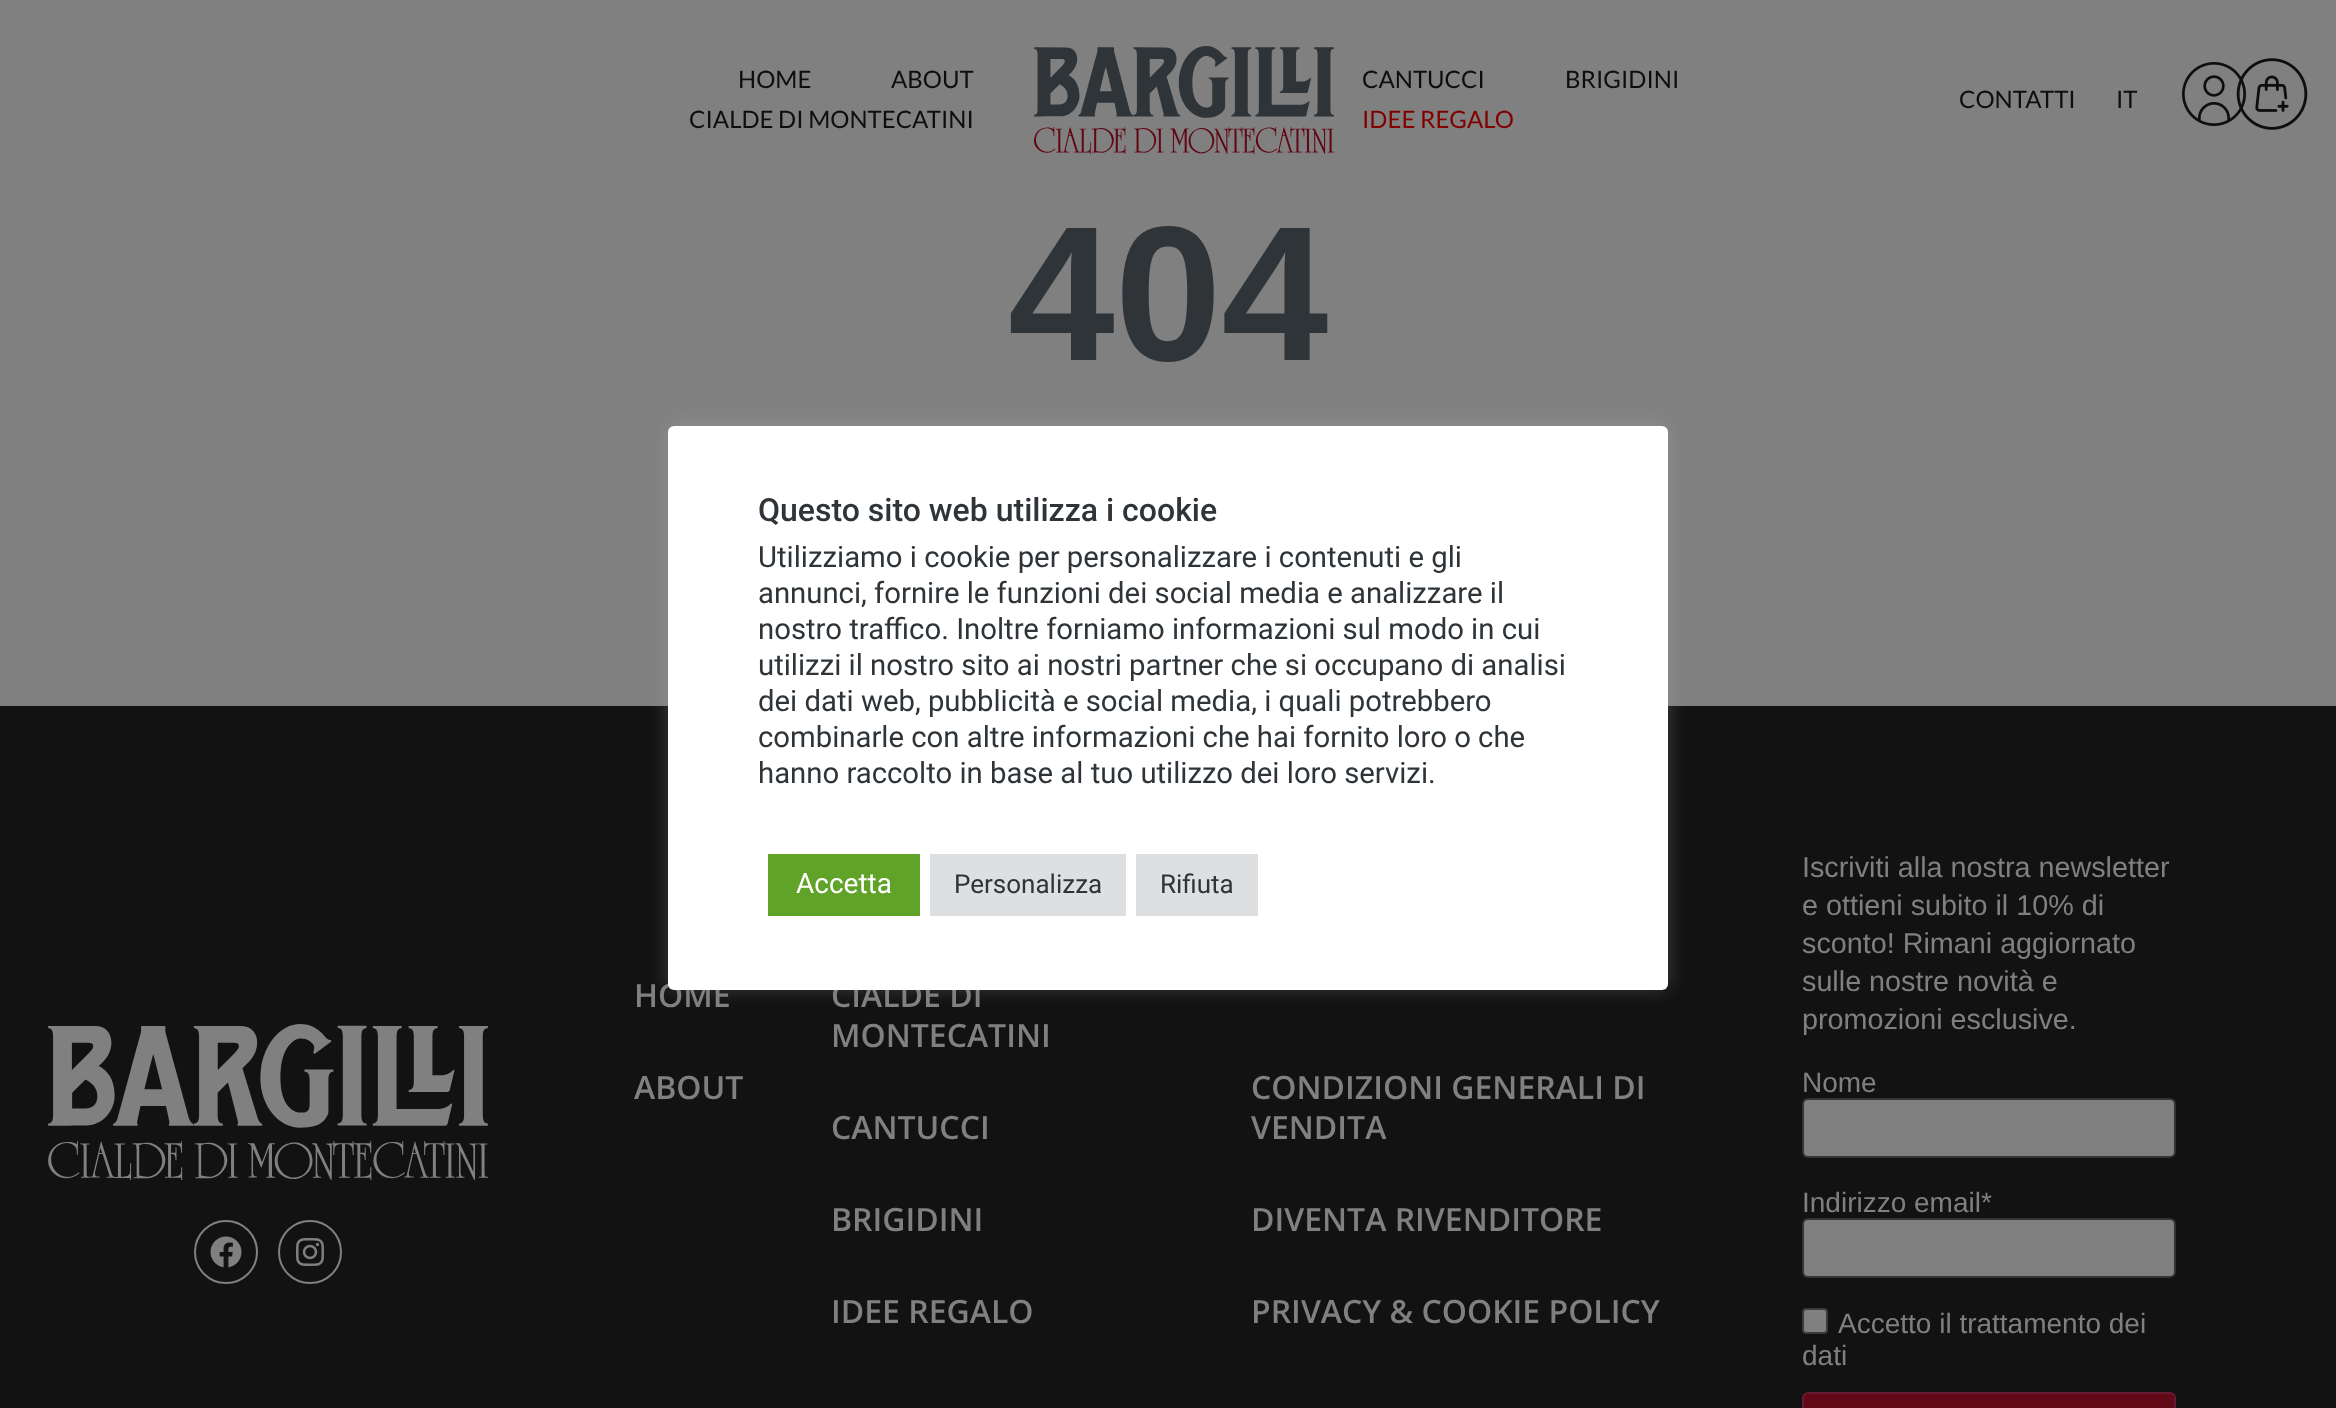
<svg xmlns="http://www.w3.org/2000/svg" width="2336" height="1408" viewBox="0 0 2336 1408">
  <rect width="100%" height="100%" fill="#808080"/>
  <image x="1034" y="46" width="300" height="108" href="img/1.png"/>
  <image x="2182" y="62" width="64" height="64" href="img/2.png"/>
  <image x="2236" y="58" width="72" height="72" href="img/3.png"/>
  <path d="M0 706h2336v702H0z" fill="#121212"/>
  <rect x="668" y="424" width="1000" height="564" rx="6" fill="#acabab4d" filter="blur(10px)"/>
  <image x="48" y="1024" width="440" height="156" href="img/4.png"/>
  <circle cx="226" cy="1252" r="31" fill="none" stroke="#808080" stroke-width="2"/>
  <image x="210" y="1236" width="32" height="32" href="img/5.png"/>
  <circle cx="310" cy="1252" r="31" fill="none" stroke="#808080" stroke-width="2"/>
  <image x="296" y="1238" width="28" height="28" href="img/6.png"/>
  <rect x="1803" y="1099" width="372" height="58" rx="5" fill="#808080" stroke="#333" stroke-width="2"/>
  <rect x="1803" y="1219" width="372" height="58" rx="5" fill="#808080" stroke="#333" stroke-width="2"/>
  <rect x="1803" y="1309" width="24" height="24" rx="3" fill="#808080" stroke="#3b3b3b" stroke-width="2"/>
  <rect x="1803" y="1393" width="372" height="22" rx="5" fill="#620917" stroke="#661a33" stroke-width="2"/>
  <g font-family="Lato" font-size="24" fill="#0e0e0f">
    <text x="738" y="88">HOME</text>
    <text x="891" y="88">ABOUT</text>
    <text x="689" y="128">CIALDE DI MONTECATINI</text>
    <text x="1362" y="88">CANTUCCI</text>
    <text x="1565" y="88">BRIGIDINI</text>
  </g>
  <text x="1362" y="128" font-family="Lato" font-size="24" fill="#800000">IDEE REGALO</text>
  <g font-family="Lato" font-size="24" fill="#0e0e0f">
    <text x="1959" y="108">CONTATTI</text>
    <text x="2116" y="108">IT</text>
  </g>
  <text x="1008" y="360" font-family="Liberation Sans" font-size="192" font-weight="bold" fill="#2e3438">404</text>
  <g font-family="Open Sans" font-size="32" font-weight="600" fill="#808080">
    <text x="634" y="1007">HOME</text>
    <text x="634" y="1099">ABOUT</text>
    <text x="831" y="1007">CIALDE DI</text>
  </g>
  <rect x="668" y="426" width="1000" height="564" rx="6" fill="#fff"/>
  <path d="M1136 854h122v62H1136z" fill="#dedfe0"/>
  <text x="1160" y="893" font-family="Roboto" font-size="26" fill="#2e3438">Rifiuta</text>
  <path d="M930 854h196v62H930z" fill="#dedfe0"/>
  <text x="954" y="893" font-family="Roboto" font-size="26" fill="#2e3438">Personalizza</text>
  <path d="M768 854h152v62H768z" fill="#61a229"/>
  <text x="796" y="893" font-family="Roboto" font-size="28" fill="#fff">Accetta</text>
  <g font-family="Roboto" font-size="29.3" fill="#2e3438">
    <text x="758" y="783">hanno raccolto in base al tuo utilizzo dei loro servizi.</text>
    <text x="758" y="747">combinarle con altre informazioni che hai fornito loro o che</text>
    <text x="758" y="711">dei dati web, pubblicità e social media, i quali potrebbero</text>
    <text x="758" y="675">utilizzi il nostro sito ai nostri partner che si occupano di analisi</text>
    <text x="758" y="639">nostro traffico. Inoltre forniamo informazioni sul modo in cui</text>
    <text x="758" y="603">annunci, fornire le funzioni dei social media e analizzare il</text>
    <text x="758" y="567">Utilizziamo i cookie per personalizzare i contenuti e gli</text>
  </g>
  <text x="758" y="521" font-family="Roboto" font-size="32" font-weight="500" fill="#2e3438">Questo sito web utilizza i cookie</text>
  <g font-family="Open Sans" font-size="32" font-weight="600" fill="#808080">
    <text x="831" y="1047">MONTECATINI</text>
    <text x="831" y="1139">CANTUCCI</text>
    <text x="831" y="1231">BRIGIDINI</text>
    <text x="831" y="1323">IDEE REGALO</text>
    <text x="1251" y="1099">CONDIZIONI GENERALI DI</text>
    <text x="1251" y="1139">VENDITA</text>
    <text x="1251" y="1231">DIVENTA RIVENDITORE</text>
    <text x="1251" y="1323">PRIVACY &amp; COOKIE POLICY</text>
  </g>
  <g font-family="Liberation Sans" font-size="28.75" fill="#808080">
    <text x="1802" y="877">Iscriviti alla nostra newsletter</text>
    <text x="1802" y="915">e ottieni subito il 10% di</text>
    <text x="1802" y="953">sconto! Rimani aggiornato</text>
    <text x="1802" y="991">sulle nostre novità e</text>
    <text x="1802" y="1029">promozioni esclusive.</text>
  </g>
  <g font-family="Liberation Sans" font-size="28" fill="#808080">
    <text x="1802" y="1092">Nome</text>
    <text x="1802" y="1212">Indirizzo email*</text>
    <text x="1838" y="1333">Accetto il trattamento dei</text>
    <text x="1802" y="1365">dati</text>
  </g>
</svg>
